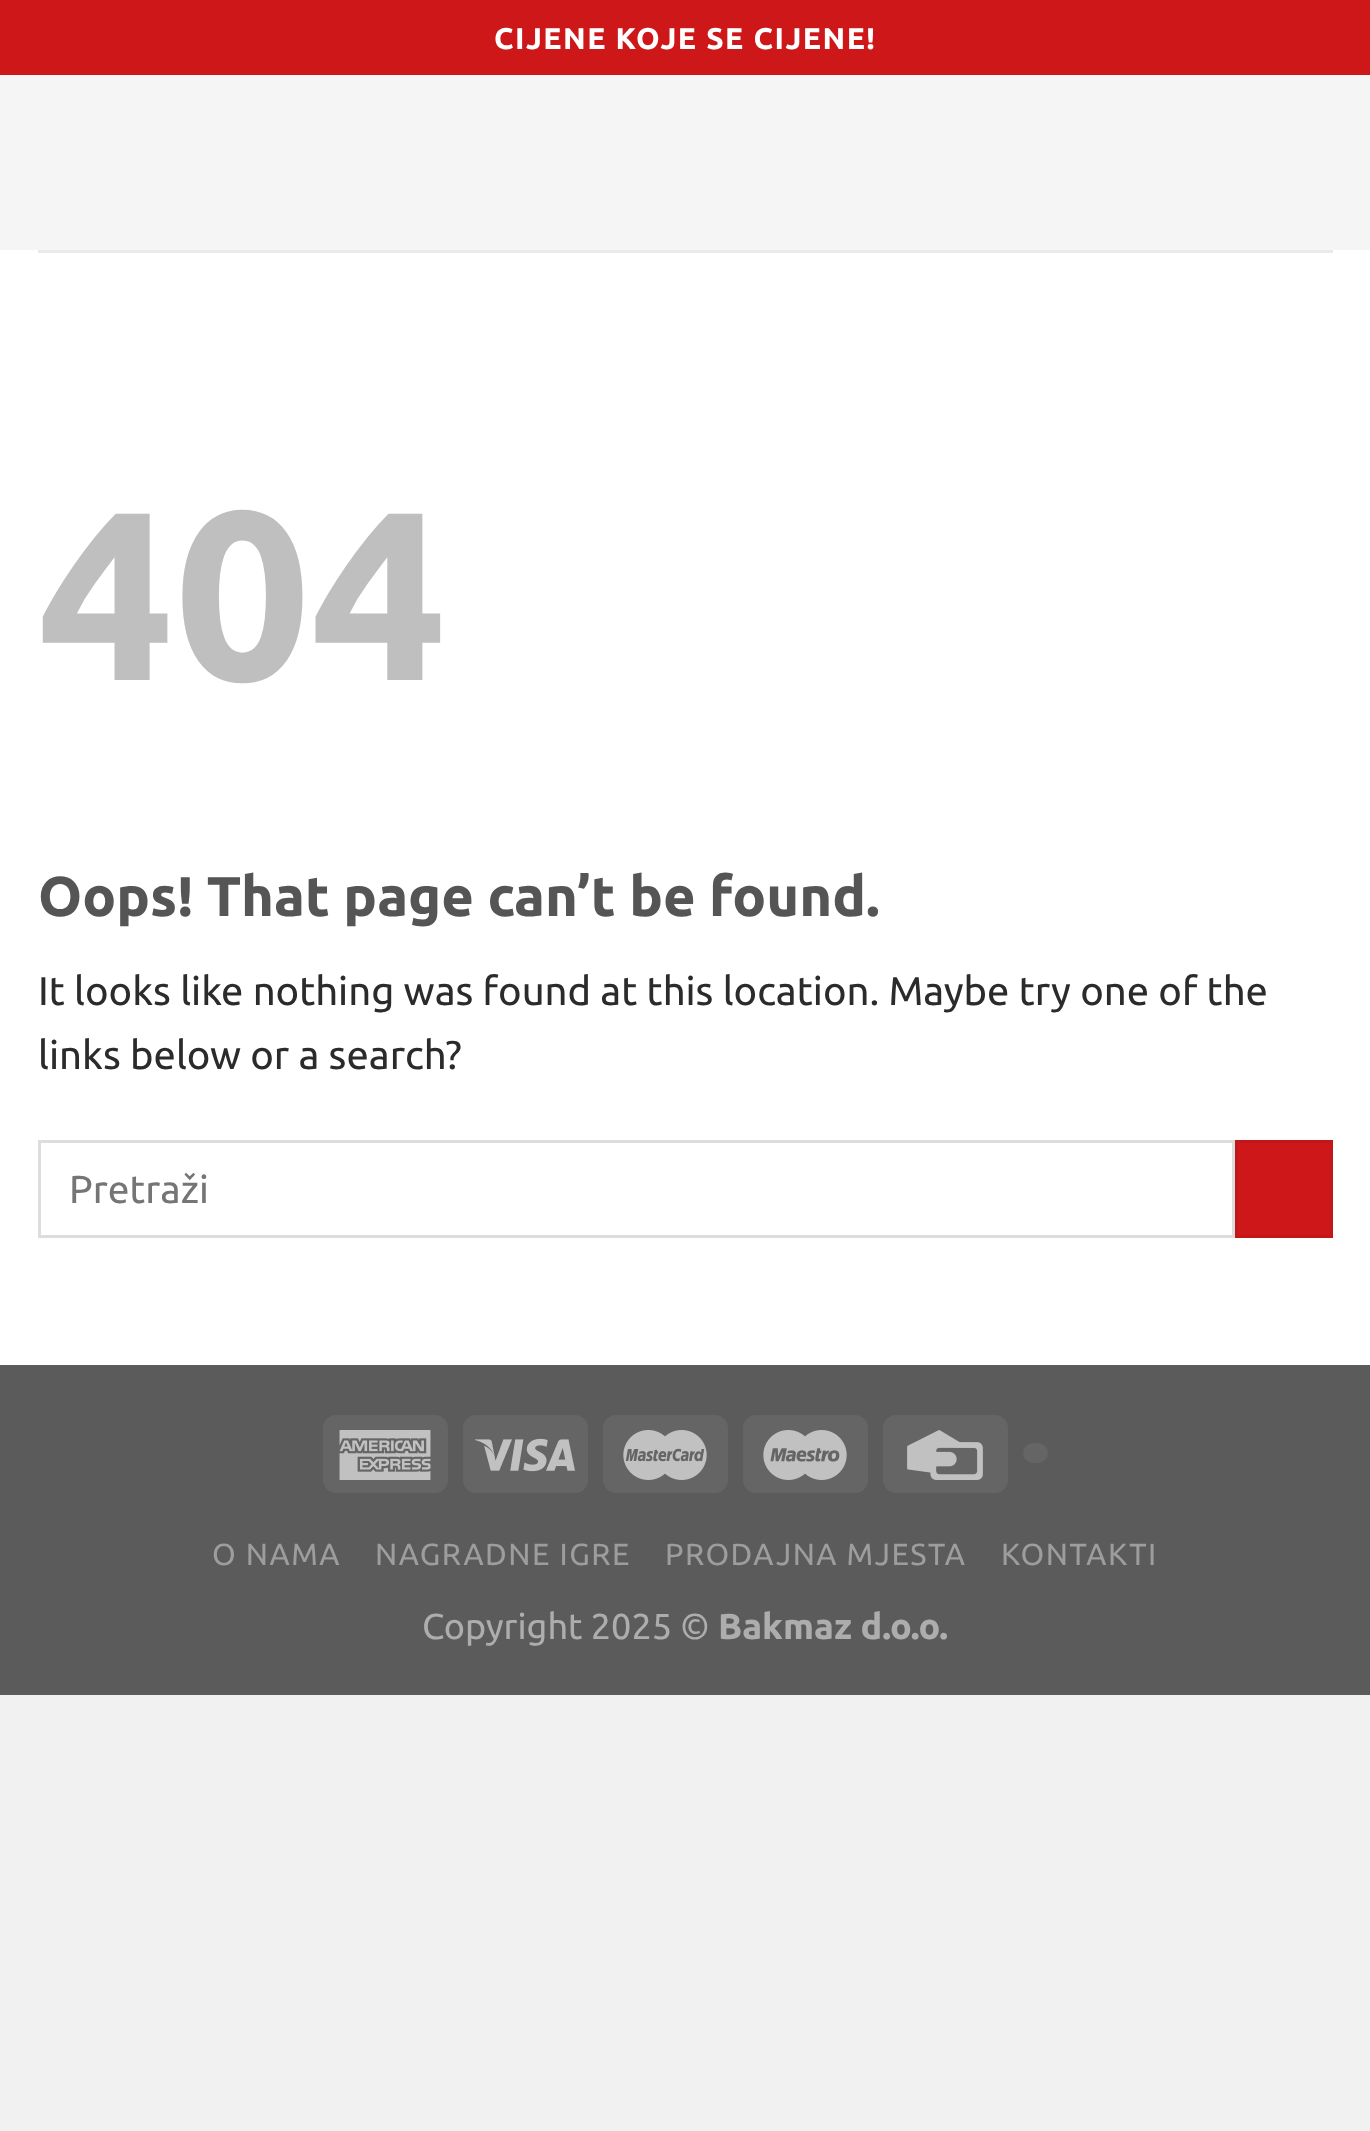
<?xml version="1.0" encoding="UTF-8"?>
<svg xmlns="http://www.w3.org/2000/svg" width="1370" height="2131">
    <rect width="100%" height="100%" fill="#F1F1F1"/>
    <rect x="0" y="250" width="1370" height="1115" fill="#FFFFFF"/>
    <rect x="0" y="75" width="1370" height="175" fill="#F5F5F5"/>
    <rect x="0" y="0" width="1370" height="75" fill="#CD1719"/>
    <text x="494" y="49" font-family="Ubuntu" font-size="30" font-weight="700" letter-spacing="1.5" fill="#FFFFFF">CIJENE KOJE SE CIJENE!</text>
    <rect x="38" y="250" width="1295" height="3" fill="#EAEAEA"/>
    <text x="38" y="680" font-family="Ubuntu" font-size="240" font-weight="700" fill="#BFBFBF">404</text>
    <text x="38" y="916" font-family="Ubuntu" font-size="56" font-weight="700" fill="#555555">Oops! That page can’t be found.</text>
    <text font-family="Ubuntu" font-size="40" fill="#2B2B2B">
        <tspan x="38" y="1005">It looks like nothing was found at this location. Maybe try one of the</tspan>
        <tspan x="38" y="1069">links below or a search?</tspan>
    </text>
    <rect x="39.5" y="1141.5" width="1194" height="95" fill="none" stroke="#DDDDDD" stroke-width="3"/>
    <text x="69" y="1203" font-family="Ubuntu" font-size="39" fill="#757575">Pretraži</text>
    <rect x="1236.5" y="1141.5" width="95" height="95" fill="#CD1719" stroke="#C31618" stroke-width="3"/>
    <rect x="0" y="1365" width="1370" height="330" fill="#5B5B5B"/>
    <rect x="323" y="1415" width="125" height="78" rx="13" fill="#656565"/>
    <image x="339" y="1430" width="92" height="50" href="img_01.png"/>
    <rect x="463" y="1415" width="125" height="78" rx="13" fill="#656565"/>
    <image x="475" y="1438" width="100" height="34" href="img_02.png"/>
    <rect x="603" y="1415" width="125" height="78" rx="13" fill="#656565"/>
    <image x="623" y="1430" width="84" height="50" href="img_03.png"/>
    <rect x="743" y="1415" width="125" height="78" rx="13" fill="#656565"/>
    <image x="763" y="1430" width="84" height="50" href="img_04.png"/>
    <rect x="883" y="1415" width="125" height="78" rx="13" fill="#656565"/>
    <image x="907" y="1430" width="76" height="50" href="img_05.png"/>
    <rect x="1023" y="1443" width="25" height="20" rx="10" fill="#656565"/>
    <text x="212" y="1565" font-family="Ubuntu" font-size="30.5" letter-spacing="1.5" fill="#9D9D9D">O NAMA</text>
    <text x="375" y="1565" font-family="Ubuntu" font-size="30.5" letter-spacing="1.5" fill="#9D9D9D">NAGRADNE IGRE</text>
    <text x="665" y="1565" font-family="Ubuntu" font-size="30.5" letter-spacing="1.5" fill="#9D9D9D">PRODAJNA MJESTA</text>
    <text x="1001" y="1565" font-family="Ubuntu" font-size="30.5" letter-spacing="1.5" fill="#9D9D9D">KONTAKTI</text>
    <text x="422" y="1639" font-family="Ubuntu" font-size="36" fill="#ADADAD">Copyright 2025 ©</text>
    <text x="718" y="1639" font-family="Ubuntu" font-size="36" font-weight="700" fill="#ADADAD">Bakmaz d.o.o.</text>
</svg>
